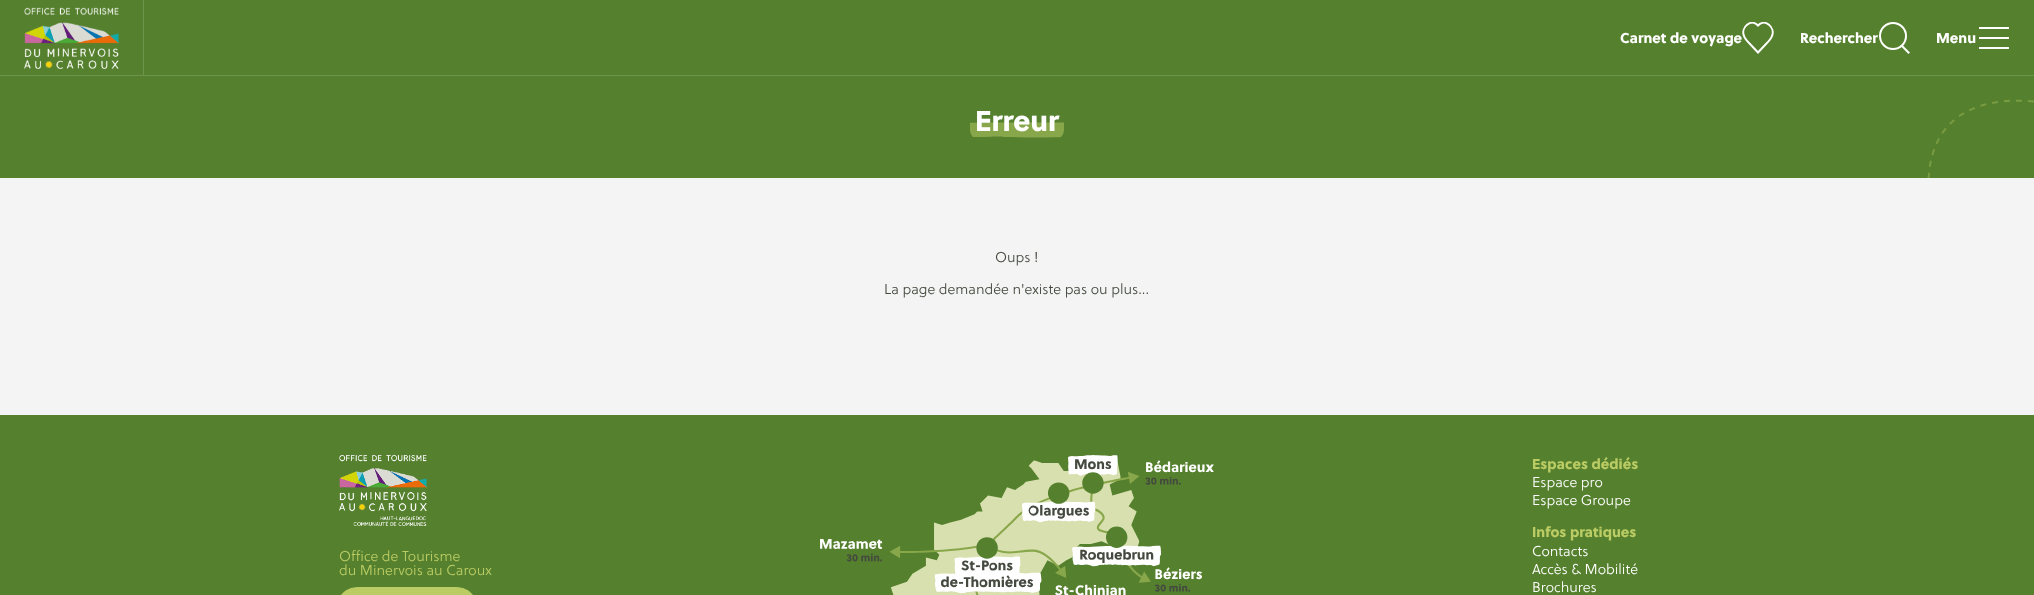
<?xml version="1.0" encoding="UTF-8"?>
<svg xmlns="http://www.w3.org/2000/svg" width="2034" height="595">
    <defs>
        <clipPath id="clip1"><rect x="1742" y="22" width="32" height="32"/></clipPath>
        <clipPath id="clip2"><rect x="1692" y="99" width="342" height="79"/></clipPath>
    </defs>
    <rect width="100%" height="100%" fill="#F4F4F4"/>
    <rect x="0" y="0" width="2034" height="75" fill="#55802E"/>
    <rect x="0" y="75" width="2034" height="1" fill="#6E934D"/>
    <image x="23" y="7" width="96" height="62" href="img_01.png"/>
    <rect x="143" y="0" width="1" height="76" fill="#6E934D"/>
    <g clip-path="url(#clip1)">
        <path d="M 1758 52.5 L 1750 44 C 1747.5 41.5 1745 39 1744 36 C 1740.5 27.5 1751 18 1758 25.5 C 1765 18 1775.5 27.5 1772 36 C 1771 39 1768.5 41.5 1766 44 Z" fill="none" stroke="#FFFFFF" stroke-width="2"/>
    </g>
    <text x="1620" y="43" font-family="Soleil" font-size="14.25" font-weight="800" fill="#FFFFFF">Carnet de voyage</text>
    <circle cx="1893" cy="36" r="13" fill="none" stroke="#FFFFFF" stroke-width="2"/>
    <path d="M 1902 46 L 1908.5 52.5" fill="none" stroke="#FFFFFF" stroke-width="2" stroke-linecap="square"/>
    <text x="1800" y="43" font-family="Soleil" font-size="14.25" font-weight="800" fill="#FFFFFF">Rechercher</text>
    <rect x="1979" y="37" width="30" height="2" fill="#FFFFFF"/>
    <rect x="1979" y="27" width="30" height="2" fill="#FFFFFF"/>
    <rect x="1979" y="47" width="30" height="2" fill="#FFFFFF"/>
    <text x="1936" y="43" font-family="Soleil" font-size="14.25" font-weight="800" fill="#FFFFFF">Menu</text>
    <rect x="0" y="76" width="2034" height="102" fill="#55802E"/>
    <g clip-path="url(#clip2)">
        <path d="M 2034 101.5 C 1964.5 95 1905 126.5 1937.5 246 C 1986 425 1859 465 1753 467 C 1647 468.5 1693 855 1805 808.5 C 1915.5 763.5 1869.5 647 2016.5 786 L 2025 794.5" fill="none" stroke="#799B41" stroke-width="2" stroke-dasharray="6 6"/>
    </g>
    <image x="970" y="122" width="94" height="16" href="img_02.png"/>
    <text x="975" y="131" font-family="Soleil" font-size="28.5" font-weight="800" fill="#FFFFFF">Erreur</text>
    <text x="995" y="262" font-family="Soleil" font-size="14.25" font-weight="300" fill="#444A3F">Oups !</text>
    <text x="884" y="294" font-family="Soleil" font-size="14.25" font-weight="300" fill="#444A3F">La page demandée n'existe pas ou plus...</text>
    <rect x="0" y="415" width="2034" height="180" fill="#55802E"/>
    <image x="339" y="455" width="88" height="71" href="img_03.png"/>
    <text font-family="Soleil" font-size="14.25" font-weight="300" fill="#BBCC65">
        <tspan x="339" y="561">Office de Tourisme</tspan>
        <tspan x="339" y="575">du Minervois au Caroux</tspan>
    </text>
    <rect x="339.5" y="587.5" width="135" height="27" rx="18.5" fill="#BBCC65" stroke="#BBCC65"/>
    <image x="820" y="455" width="394" height="140" href="img_04.png"/>
    <text x="1532" y="469" font-family="Soleil" font-size="14.25" font-weight="800" fill="#BBCC65">Espaces dédiés</text>
    <text font-family="Soleil" font-size="14.25" font-weight="300" fill="#FFFFFF">
        <tspan x="1532" y="487">Espace pro</tspan>
        <tspan x="1532" y="505">Espace Groupe</tspan>
    </text>
    <text x="1532" y="537" font-family="Soleil" font-size="14.25" font-weight="800" fill="#BBCC65">Infos pratiques</text>
    <text font-family="Soleil" font-size="14.25" font-weight="300" fill="#FFFFFF">
        <tspan x="1532" y="556">Contacts</tspan>
        <tspan x="1532" y="574">Accès &amp; Mobilité</tspan>
        <tspan x="1532" y="592">Brochures</tspan>
    </text>
</svg>
